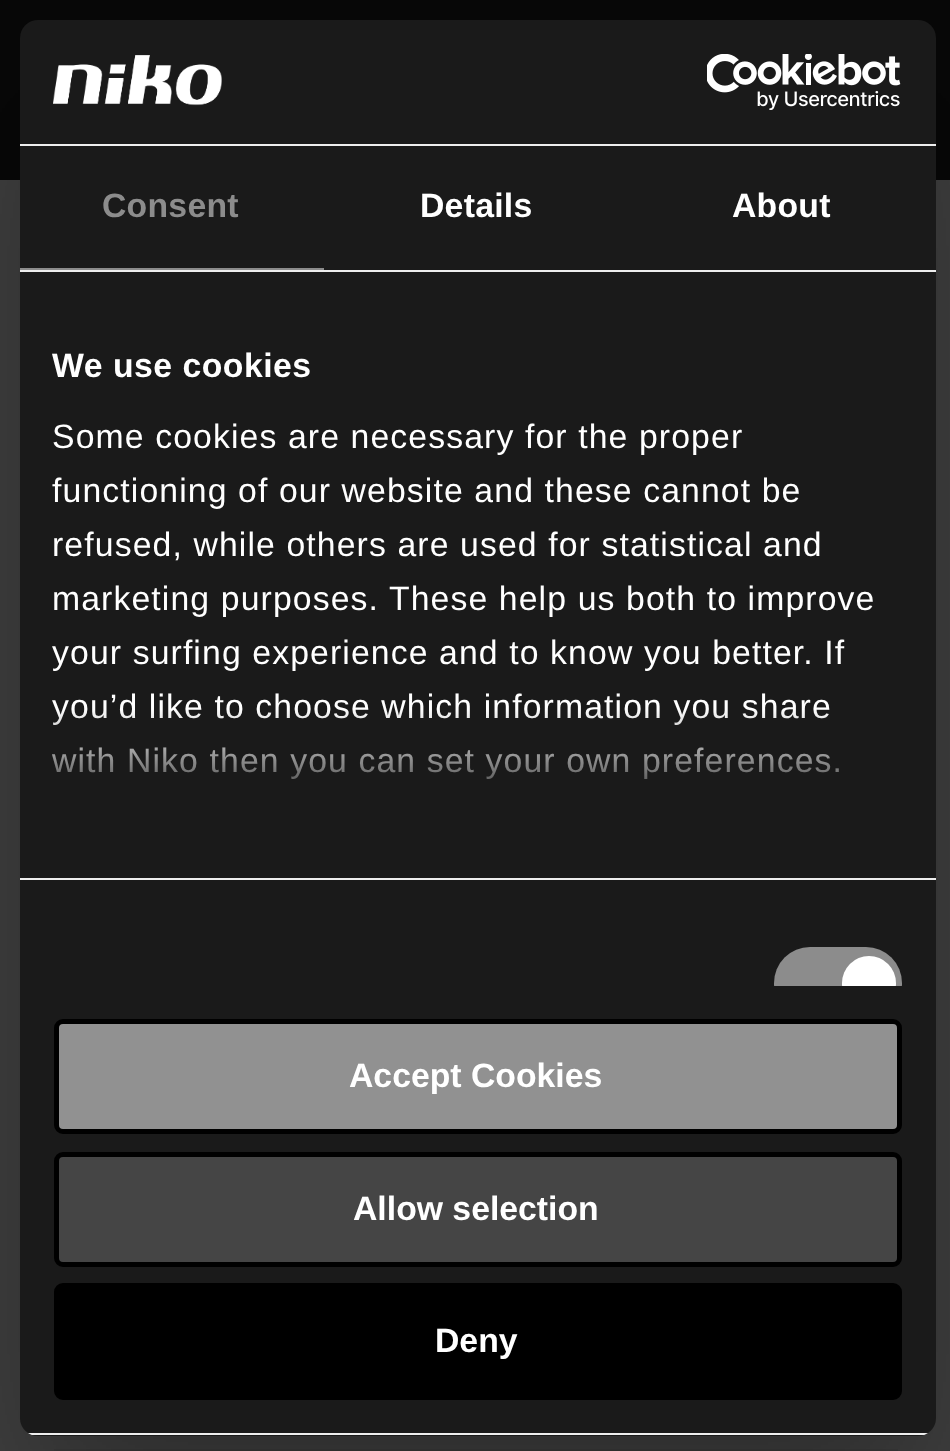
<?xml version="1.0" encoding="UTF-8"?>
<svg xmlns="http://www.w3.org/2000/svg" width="950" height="1451">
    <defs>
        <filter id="blur1" x="-50%" y="-200%" width="200%" height="500%"><feGaussianBlur stdDeviation="76.5"/></filter>
        <linearGradient id="g1" gradientUnits="userSpaceOnUse" x1="462" y1="876" x2="462" y2="708"><stop offset="0" stop-color="#1A1A1A"/><stop offset="0.5" stop-color="#1A1A1A" stop-opacity="0.8"/><stop offset="1" stop-color="#1A1A1A" stop-opacity="0"/></linearGradient>
        <clipPath id="clip1"><rect x="20" y="272" width="916" height="714"/></clipPath>
        <clipPath id="clip2"><rect x="20" y="20" width="916" height="1416" rx="18"/></clipPath>
    </defs>
    <rect width="100%" height="100%" fill="#404040"/>
    <rect x="0" y="0" width="950" height="180" fill="#070707"/>
    <rect x="55" y="1450" width="842" height="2" fill="none" stroke="#3C3C3C" stroke-width="2"/>
    <rect x="20" y="92" width="916" height="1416" rx="18" fill="#000000" fill-opacity="0.3" filter="url(#blur1)"/>
    <rect x="20" y="20" width="916" height="1416" rx="18" fill="#1A1A1A"/>
    <rect x="20" y="144" width="916" height="2" fill="#EEEEEE"/>
    <image x="53" y="55" width="169" height="51" href="img_01.png"/>
    <image x="707" y="54" width="194" height="56" href="img_02.png"/>
    <rect x="20" y="270" width="916" height="2" fill="#EEEEEE"/>
    <rect x="20" y="268" width="304" height="2" fill="#8C8C8C"/>
    <text x="102" y="217" font-family="Liberation Sans" font-size="33.75" font-weight="700" letter-spacing="0.25" fill="#8C8C8C">Consent</text>
    <text x="420" y="217" font-family="Liberation Sans" font-size="33.75" font-weight="700" letter-spacing="0.25" fill="#FFFFFF">Details</text>
    <text x="732" y="217" font-family="Liberation Sans" font-size="33.75" font-weight="700" letter-spacing="0.25" fill="#FFFFFF">About</text>
    <rect x="20" y="878" width="916" height="2" fill="#EEEEEE"/>
    <text x="52" y="377" font-family="Liberation Sans" font-size="33.75" font-weight="700" letter-spacing="0.5" fill="#FFFFFF">We use cookies</text>
    <text font-family="Liberation Sans" font-size="33.75" letter-spacing="1.12" fill="#FFFFFF">
        <tspan x="52" y="448">Some cookies are necessary for the proper</tspan>
        <tspan x="52" y="502">functioning of our website and these cannot be</tspan>
        <tspan x="52" y="556">refused, while others are used for statistical and</tspan>
        <tspan x="52" y="610">marketing purposes. These help us both to improve</tspan>
        <tspan x="52" y="664">your surfing experience and to know you better. If</tspan>
        <tspan x="52" y="718">you’d like to choose which information you share</tspan>
        <tspan x="52" y="772">with Niko then you can set your own preferences.</tspan>
    </text>
    <rect x="51" y="710" width="788" height="69" fill="url(#g1)"/>
    <g clip-path="url(#clip1)">
        <rect x="774" y="947" width="128" height="72" rx="36" fill="#8C8C8C"/>
        <circle cx="869" cy="983" r="27" fill="#FFFFFF"/>
    </g>
    <g clip-path="url(#clip2)">
        <rect x="20" y="1433" width="916" height="2" fill="#EEEEEE"/>
    </g>
    <rect x="56.5" y="1021.5" width="843" height="110" rx="6.5" fill="#919191" stroke="#000000" stroke-width="5"/>
    <text x="349" y="1087" font-family="Liberation Sans" font-size="33.75" font-weight="700" fill="#FFFFFF">Accept Cookies</text>
    <rect x="56.5" y="1154.5" width="843" height="110" rx="6.5" fill="#454545" stroke="#000000" stroke-width="5"/>
    <text x="353" y="1220" font-family="Liberation Sans" font-size="33.75" font-weight="700" fill="#FFFFFF">Allow selection</text>
    <rect x="56.5" y="1285.5" width="843" height="112" rx="6.5" fill="#000000" stroke="#000000" stroke-width="5"/>
    <text x="435" y="1352" font-family="Liberation Sans" font-size="33.75" font-weight="700" fill="#FFFFFF">Deny</text>
</svg>
